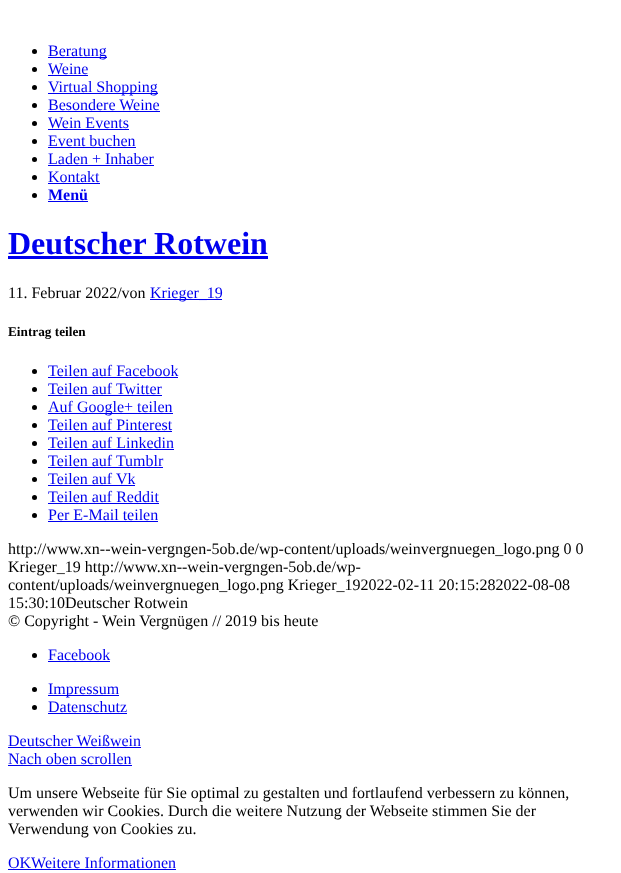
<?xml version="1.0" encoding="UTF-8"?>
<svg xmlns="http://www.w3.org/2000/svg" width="621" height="873">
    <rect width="100%" height="100%" fill="#FFFFFF"/>
    <circle cx="34.5" cy="51.5" r="2.5" fill="#000000"/>
    <rect x="48" y="57" width="59" height="1" fill="#0000EE"/>
    <text x="48" y="56" font-family="Liberation Serif" font-size="16" fill="#0000EE">Beratung</text>
    <circle cx="34.5" cy="69.5" r="2.5" fill="#000000"/>
    <text x="48" y="74" font-family="Liberation Serif" font-size="16" fill="#0000EE">Weine</text>
    <rect x="48" y="75" width="40" height="1" fill="#0000EE"/>
    <circle cx="34.5" cy="87.5" r="2.5" fill="#000000"/>
    <rect x="48" y="93" width="110" height="1" fill="#0000EE"/>
    <text x="48" y="92" font-family="Liberation Serif" font-size="16" fill="#0000EE">Virtual Shopping</text>
    <circle cx="34.5" cy="105.5" r="2.5" fill="#000000"/>
    <text x="48" y="110" font-family="Liberation Serif" font-size="16" fill="#0000EE">Besondere Weine</text>
    <rect x="48" y="111" width="112" height="1" fill="#0000EE"/>
    <circle cx="34.5" cy="123.5" r="2.5" fill="#000000"/>
    <text x="48" y="128" font-family="Liberation Serif" font-size="16" fill="#0000EE">Wein Events</text>
    <rect x="48" y="129" width="81" height="1" fill="#0000EE"/>
    <circle cx="34.5" cy="141.5" r="2.5" fill="#000000"/>
    <text x="48" y="146" font-family="Liberation Serif" font-size="16" fill="#0000EE">Event buchen</text>
    <rect x="48" y="147" width="88" height="1" fill="#0000EE"/>
    <circle cx="34.5" cy="159.5" r="2.5" fill="#000000"/>
    <text x="48" y="164" font-family="Liberation Serif" font-size="16" fill="#0000EE">Laden + Inhaber</text>
    <rect x="48" y="165" width="106" height="1" fill="#0000EE"/>
    <circle cx="34.5" cy="177.5" r="2.5" fill="#000000"/>
    <text x="48" y="182" font-family="Liberation Serif" font-size="16" fill="#0000EE">Kontakt</text>
    <rect x="48" y="183" width="52" height="1" fill="#0000EE"/>
    <circle cx="34.5" cy="195.5" r="2.5" fill="#000000"/>
    <text x="48" y="200" font-family="Liberation Serif" font-size="16" font-weight="700" fill="#0000EE">Menü</text>
    <rect x="48" y="201" width="40" height="1" fill="#0000EE"/>
    <text x="8" y="254" font-family="Liberation Serif" font-size="32" font-weight="700" fill="#0000EE">Deutscher Rotwein</text>
    <rect x="8" y="256" width="260" height="3" fill="#0000EE"/>
    <text x="8" y="298" font-family="Liberation Serif" font-size="16" fill="#000000">11. Februar 2022/von</text>
    <rect x="150" y="299" width="72" height="1" fill="#0000EE"/>
    <text x="150" y="298" font-family="Liberation Serif" font-size="16" fill="#0000EE">Krieger_19</text>
    <text x="8" y="336" font-family="Liberation Serif" font-size="13.25" font-weight="700" fill="#000000">Eintrag teilen</text>
    <circle cx="34.5" cy="371.5" r="2.5" fill="#000000"/>
    <text x="48" y="376" font-family="Liberation Serif" font-size="16" fill="#0000EE">Teilen auf Facebook</text>
    <rect x="48" y="377" width="130" height="1" fill="#0000EE"/>
    <circle cx="34.5" cy="389.5" r="2.5" fill="#000000"/>
    <text x="48" y="394" font-family="Liberation Serif" font-size="16" fill="#0000EE">Teilen auf Twitter</text>
    <rect x="48" y="395" width="114" height="1" fill="#0000EE"/>
    <circle cx="34.5" cy="407.5" r="2.5" fill="#000000"/>
    <rect x="48" y="413" width="125" height="1" fill="#0000EE"/>
    <text x="48" y="412" font-family="Liberation Serif" font-size="16" fill="#0000EE">Auf Google+ teilen</text>
    <circle cx="34.5" cy="425.5" r="2.5" fill="#000000"/>
    <text x="48" y="430" font-family="Liberation Serif" font-size="16" fill="#0000EE">Teilen auf Pinterest</text>
    <rect x="48" y="431" width="124" height="1" fill="#0000EE"/>
    <circle cx="34.5" cy="443.5" r="2.5" fill="#000000"/>
    <text x="48" y="448" font-family="Liberation Serif" font-size="16" fill="#0000EE">Teilen auf Linkedin</text>
    <rect x="48" y="449" width="126" height="1" fill="#0000EE"/>
    <circle cx="34.5" cy="461.5" r="2.5" fill="#000000"/>
    <text x="48" y="466" font-family="Liberation Serif" font-size="16" fill="#0000EE">Teilen auf Tumblr</text>
    <rect x="48" y="467" width="115" height="1" fill="#0000EE"/>
    <circle cx="34.5" cy="479.5" r="2.5" fill="#000000"/>
    <text x="48" y="484" font-family="Liberation Serif" font-size="16" fill="#0000EE">Teilen auf Vk</text>
    <rect x="48" y="485" width="87" height="1" fill="#0000EE"/>
    <circle cx="34.5" cy="497.5" r="2.5" fill="#000000"/>
    <text x="48" y="502" font-family="Liberation Serif" font-size="16" fill="#0000EE">Teilen auf Reddit</text>
    <rect x="48" y="503" width="111" height="1" fill="#0000EE"/>
    <circle cx="34.5" cy="515.5" r="2.5" fill="#000000"/>
    <text x="48" y="520" font-family="Liberation Serif" font-size="16" fill="#0000EE">Per E-Mail teilen</text>
    <rect x="48" y="521" width="110" height="1" fill="#0000EE"/>
    <text font-family="Liberation Serif" font-size="16" fill="#000000">
        <tspan x="8" y="554">http://www.xn--wein-vergngen-5ob.de/wp-content/uploads/weinvergnuegen_logo.png 0 0</tspan>
        <tspan x="8" y="572">Krieger_19 http://www.xn--wein-vergngen-5ob.de/wp-</tspan>
        <tspan x="8" y="590">content/uploads/weinvergnuegen_logo.png Krieger_192022-02-11 20:15:282022-08-08</tspan>
        <tspan x="8" y="608">15:30:10Deutscher Rotwein</tspan>
        <tspan x="8" y="626">© Copyright - Wein Vergnügen // 2019 bis heute</tspan>
    </text>
    <circle cx="34.5" cy="655.5" r="2.5" fill="#000000"/>
    <text x="48" y="660" font-family="Liberation Serif" font-size="16" fill="#0000EE">Facebook</text>
    <rect x="48" y="661" width="62" height="1" fill="#0000EE"/>
    <circle cx="34.5" cy="689.5" r="2.5" fill="#000000"/>
    <rect x="48" y="695" width="71" height="1" fill="#0000EE"/>
    <text x="48" y="694" font-family="Liberation Serif" font-size="16" fill="#0000EE">Impressum</text>
    <circle cx="34.5" cy="707.5" r="2.5" fill="#000000"/>
    <text x="48" y="712" font-family="Liberation Serif" font-size="16" fill="#0000EE">Datenschutz</text>
    <rect x="48" y="713" width="79" height="1" fill="#0000EE"/>
    <text x="8" y="746" font-family="Liberation Serif" font-size="16" fill="#0000EE">Deutscher Weißwein</text>
    <rect x="8" y="747" width="133" height="1" fill="#0000EE"/>
    <text x="8" y="764" font-family="Liberation Serif" font-size="16" fill="#0000EE">Nach oben scrollen</text>
    <rect x="8" y="765" width="124" height="1" fill="#0000EE"/>
    <text font-family="Liberation Serif" font-size="16" fill="#000000">
        <tspan x="8" y="798">Um unsere Webseite für Sie optimal zu gestalten und fortlaufend verbessern zu können,</tspan>
        <tspan x="8" y="816">verwenden wir Cookies. Durch die weitere Nutzung der Webseite stimmen Sie der</tspan>
        <tspan x="8" y="834">Verwendung von Cookies zu.</tspan>
    </text>
    <text x="8" y="868" font-family="Liberation Serif" font-size="16" fill="#0000EE">OKWeitere Informationen</text>
    <rect x="8" y="869" width="168" height="1" fill="#0000EE"/>
</svg>
